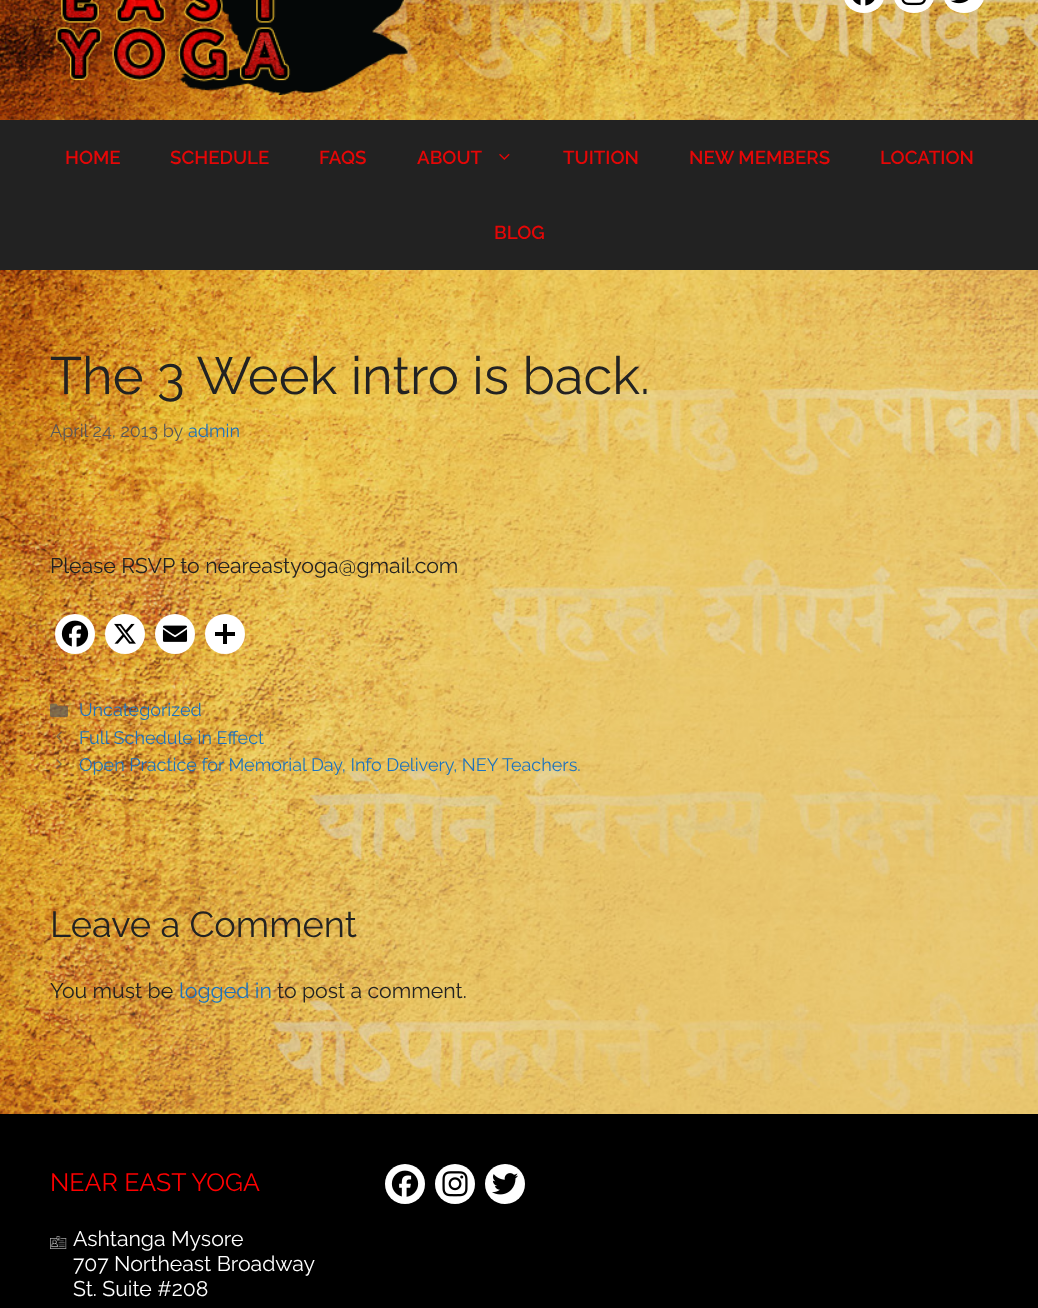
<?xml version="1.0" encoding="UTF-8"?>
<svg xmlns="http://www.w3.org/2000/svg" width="1038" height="1308">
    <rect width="100%" height="100%" fill="#FFFFFF"/>
    <image x="0" y="0" width="1038" height="1114" href="img_01.png"/>
    <rect x="844" y="-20" width="40" height="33" rx="20" fill="#FFFFFF"/>
    <image x="853" y="0" width="22" height="6" href="img_02.png"/>
    <rect x="894" y="-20" width="40" height="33" rx="20" fill="#FFFFFF"/>
    <image x="901" y="0" width="25" height="6" href="img_03.png"/>
    <rect x="944" y="-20" width="40" height="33" rx="20" fill="#FFFFFF"/>
    <image x="950" y="0" width="19" height="4" href="img_04.png"/>
    <image x="56" y="0" width="352" height="95" href="img_05.png"/>
    <rect x="0" y="120" width="1038" height="150" fill="#222222"/>
    <text x="65" y="164" font-family="Raleway" font-size="18.75" font-weight="600" fill="#E40707">HOME</text>
    <text x="170" y="164" font-family="Raleway" font-size="18.75" font-weight="600" fill="#E40707">SCHEDULE</text>
    <text x="319" y="164" font-family="Raleway" font-size="18.75" font-weight="600" fill="#E40707">FAQS</text>
    <text x="417" y="164" font-family="Raleway" font-size="18.75" font-weight="600" fill="#E40707">ABOUT</text>
    <image x="499" y="153" width="11" height="7" href="img_06.png"/>
    <text x="563" y="164" font-family="Raleway" font-size="18.75" font-weight="600" fill="#E40707">TUITION</text>
    <text x="689" y="164" font-family="Raleway" font-size="18.75" font-weight="600" fill="#E40707">NEW MEMBERS</text>
    <text x="880" y="164" font-family="Raleway" font-size="18.75" font-weight="600" fill="#E40707">LOCATION</text>
    <text x="494" y="239" font-family="Raleway" font-size="18.75" font-weight="600" fill="#E40707">BLOG</text>
    <text x="50" y="394" font-family="Raleway" font-size="52.5" fill="#222222">The 3 Week intro is back.</text>
    <text x="50" y="437" font-family="Raleway" font-size="18.05" fill="#595959">April 24, 2013 by</text>
    <text x="188" y="437" font-family="Raleway" font-size="18.05" fill="#1E73BE">admin</text>
    <text x="50" y="573" font-family="Raleway" font-size="21.25" fill="#222222">Please RSVP to neareastyoga@gmail.com</text>
    <circle cx="75" cy="634" r="20" fill="#FFFFFF"/>
    <image x="61" y="620" width="28" height="27" href="img_07.png"/>
    <circle cx="125" cy="634" r="20" fill="#FFFFFF"/>
    <image x="114" y="623" width="22" height="21" href="img_08.png"/>
    <circle cx="175" cy="634" r="20" fill="#FFFFFF"/>
    <image x="162" y="625" width="26" height="17" href="img_09.png"/>
    <circle cx="225" cy="634" r="20" fill="#FFFFFF"/>
    <rect x="223" y="624" width="4" height="20" fill="#000000"/>
    <rect x="215" y="632" width="20" height="4" fill="#000000"/>
    <image x="50" y="703" width="18" height="15" href="img_10.png"/>
    <text x="79" y="716" font-family="Raleway" font-size="18.05" fill="#1E73BE">Uncategorized</text>
    <image x="56" y="731" width="6" height="11" href="img_11.png"/>
    <text x="79" y="744" font-family="Raleway" font-size="18.05" fill="#1E73BE">Full Schedule in Effect</text>
    <image x="56" y="759" width="6" height="10" href="img_12.png"/>
    <text x="79" y="771" font-family="Raleway" font-size="18.05" fill="#1E73BE">Open Practice for Memorial Day, Info Delivery, NEY Teachers.</text>
    <text x="50" y="937" font-family="Raleway" font-size="36.25" fill="#222222">Leave a Comment</text>
    <text x="50" y="998" font-family="Raleway" font-size="21.25" fill="#222222">You must be</text>
    <text x="179" y="998" font-family="Raleway" font-size="21.25" fill="#1E73BE">logged in</text>
    <text x="277" y="998" font-family="Raleway" font-size="21.25" fill="#222222">to post a comment.</text>
    <rect x="0" y="1114" width="1038" height="194" fill="#000000"/>
    <text x="50" y="1191" font-family="Raleway" font-size="25" fill="#FF0000">NEAR EAST YOGA</text>
    <image x="50" y="1236" width="17" height="13" href="img_13.png"/>
    <text font-family="Raleway" font-size="21.25" fill="#FFFFFF">
        <tspan x="73" y="1246">Ashtanga Mysore</tspan>
        <tspan x="73" y="1271">707 Northeast Broadway</tspan>
        <tspan x="73" y="1296">St. Suite #208</tspan>
    </text>
    <circle cx="405" cy="1184" r="20" fill="#FFFFFF"/>
    <image x="391" y="1170" width="28" height="27" href="img_07.png"/>
    <circle cx="455" cy="1184" r="20" fill="#FFFFFF"/>
    <image x="442" y="1171" width="26" height="26" href="img_14.png"/>
    <circle cx="505" cy="1184" r="20" fill="#FFFFFF"/>
    <image x="492" y="1173" width="26" height="22" href="img_15.png"/>
</svg>
